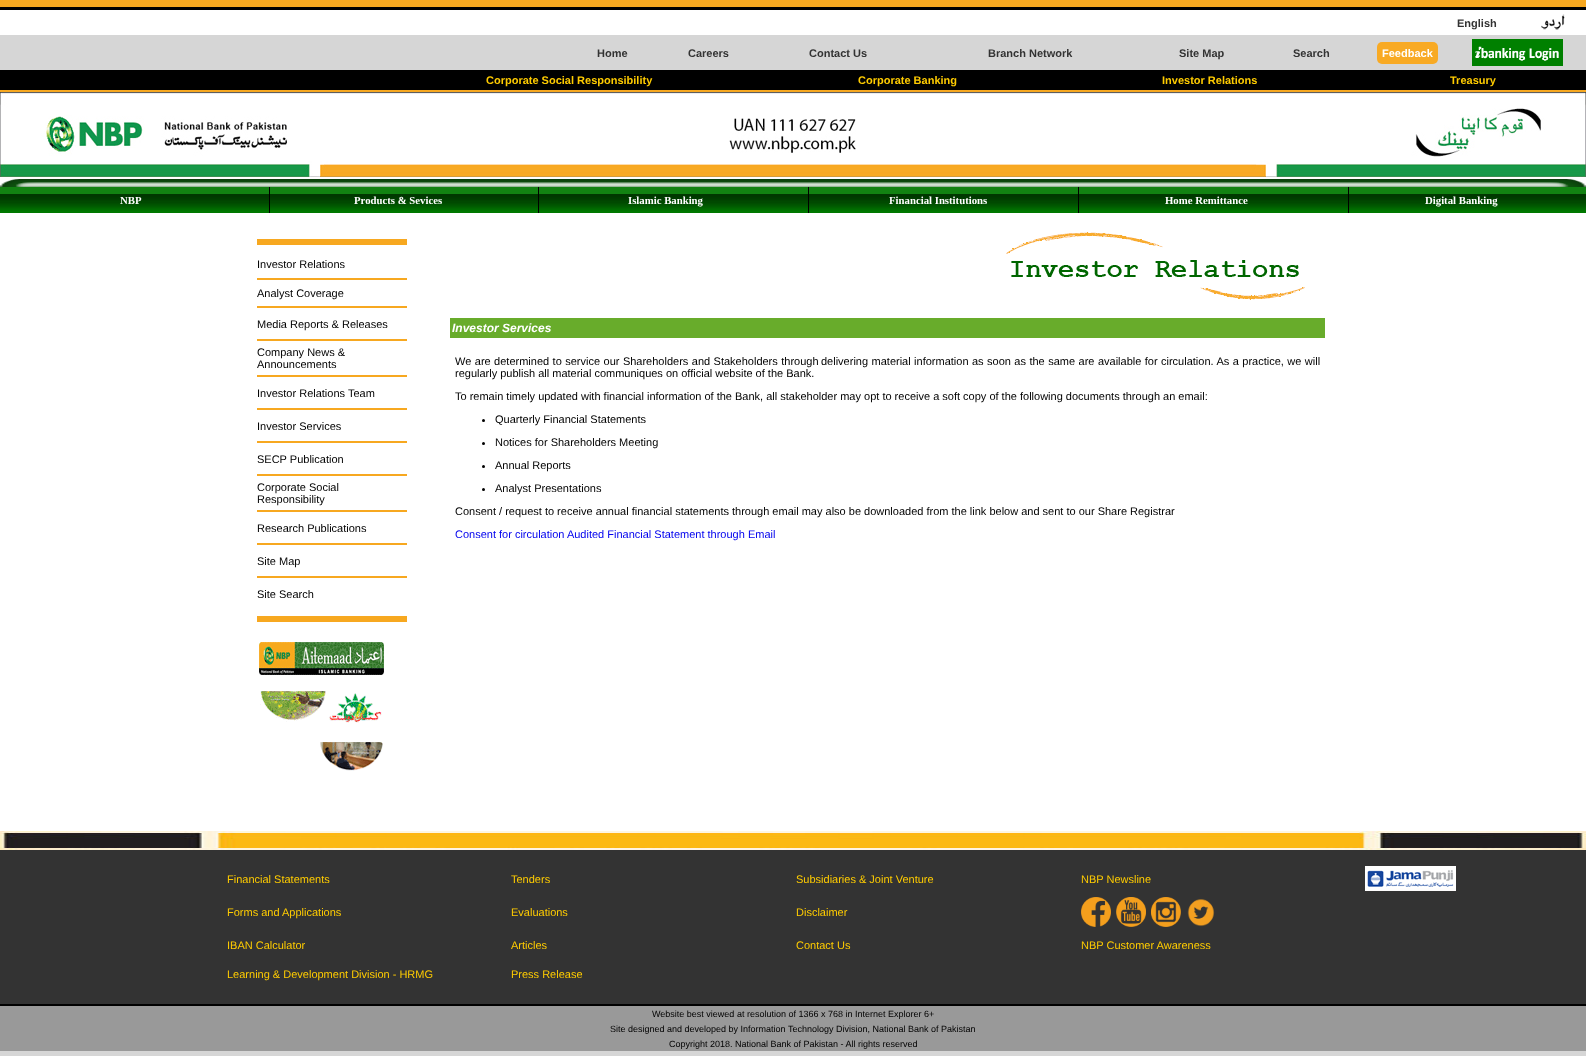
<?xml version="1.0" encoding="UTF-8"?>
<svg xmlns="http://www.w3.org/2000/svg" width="1586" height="1056">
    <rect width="100%" height="100%" fill="#FFFFFF"/>
    <rect x="0" y="0" width="1586" height="7" fill="#F7A820"/>
    <rect x="0" y="7" width="1586" height="3" fill="#000000"/>
    <text x="1457" y="27" font-family="Liberation Sans" font-size="11" font-weight="700" fill="#333333">English</text>
    <image x="1541" y="14" width="24" height="16" href="img_01.png"/>
    <rect x="0" y="35" width="1586" height="35" fill="#D6D6D6"/>
    <text x="597" y="57" font-family="Liberation Sans" font-size="11" font-weight="700" fill="#333333">Home</text>
    <text x="688" y="57" font-family="Liberation Sans" font-size="11" font-weight="700" fill="#333333">Careers</text>
    <text x="809" y="57" font-family="Liberation Sans" font-size="11" font-weight="700" fill="#333333">Contact Us</text>
    <text x="988" y="57" font-family="Liberation Sans" font-size="11" font-weight="700" fill="#333333">Branch Network</text>
    <text x="1179" y="57" font-family="Liberation Sans" font-size="11" font-weight="700" fill="#333333">Site Map</text>
    <text x="1293" y="57" font-family="Liberation Sans" font-size="11" font-weight="700" fill="#333333">Search</text>
    <rect x="1377" y="42" width="61" height="22" rx="5" fill="#F8AA24"/>
    <text x="1382" y="57" font-family="Liberation Sans" font-size="11" font-weight="700" fill="#FFFFFF">Feedback</text>
    <image x="1472" y="39" width="91" height="27" href="img_02.png"/>
    <rect x="0" y="70" width="1586" height="20" fill="#000000"/>
    <text x="486" y="84" font-family="Liberation Sans" font-size="11" font-weight="700" fill="#FFCC00">Corporate Social Responsibility</text>
    <text x="858" y="84" font-family="Liberation Sans" font-size="11" font-weight="700" fill="#FFCC00">Corporate Banking</text>
    <text x="1162" y="84" font-family="Liberation Sans" font-size="11" font-weight="700" fill="#FFCC00">Investor Relations</text>
    <text x="1450" y="84" font-family="Liberation Sans" font-size="11" font-weight="700" fill="#FFCC00">Treasury</text>
    <rect x="0" y="90" width="1586" height="2" fill="#F7A820"/>
    <image x="0" y="92" width="338" height="85" href="img_03.png"/>
    <image x="338" y="92" width="905" height="85" href="img_04.png"/>
    <image x="729" y="118" width="127" height="35" href="img_05.png"/>
    <image x="1243" y="92" width="343" height="85" href="img_06.png"/>
    <image x="0" y="179" width="1586" height="8" href="img_07.png"/>
    <image x="0" y="187" width="1586" height="26" href="img_08.png"/>
    <text x="120" y="204" font-family="Liberation Serif" font-size="10.75" font-weight="700" fill="#FFFFFF">NBP</text>
    <rect x="269" y="187" width="1" height="26" fill="#000000"/>
    <text x="354" y="204" font-family="Liberation Serif" font-size="10.75" font-weight="700" fill="#FFFFFF">Products &amp; Sevices</text>
    <rect x="538" y="187" width="1" height="26" fill="#000000"/>
    <text x="628" y="204" font-family="Liberation Serif" font-size="10.75" font-weight="700" fill="#FFFFFF">Islamic Banking</text>
    <rect x="808" y="187" width="1" height="26" fill="#000000"/>
    <text x="889" y="204" font-family="Liberation Serif" font-size="10.75" font-weight="700" fill="#FFFFFF">Financial Institutions</text>
    <rect x="1078" y="187" width="1" height="26" fill="#000000"/>
    <text x="1165" y="204" font-family="Liberation Serif" font-size="10.75" font-weight="700" fill="#FFFFFF">Home Remittance</text>
    <rect x="1348" y="187" width="1" height="26" fill="#000000"/>
    <text x="1425" y="204" font-family="Liberation Serif" font-size="10.75" font-weight="700" fill="#FFFFFF">Digital Banking</text>
    <rect x="257" y="239" width="150" height="6" fill="#F7A820"/>
    <text x="257" y="268" font-family="Liberation Sans" font-size="11" fill="#000000">Investor Relations</text>
    <rect x="257" y="278" width="150" height="2" fill="#F7A820"/>
    <text x="257" y="297" font-family="Liberation Sans" font-size="11" fill="#000000">Analyst Coverage</text>
    <rect x="257" y="306" width="150" height="2" fill="#F7A820"/>
    <text x="257" y="328" font-family="Liberation Sans" font-size="11" fill="#000000">Media Reports &amp; Releases</text>
    <rect x="257" y="339" width="150" height="2" fill="#F7A820"/>
    <text font-family="Liberation Sans" font-size="11" fill="#000000">
        <tspan x="257" y="356">Company News &amp;</tspan>
        <tspan x="257" y="368">Announcements</tspan>
    </text>
    <rect x="257" y="375" width="150" height="2" fill="#F7A820"/>
    <text x="257" y="397" font-family="Liberation Sans" font-size="11" fill="#000000">Investor Relations Team</text>
    <rect x="257" y="408" width="150" height="2" fill="#F7A820"/>
    <text x="257" y="430" font-family="Liberation Sans" font-size="11" fill="#000000">Investor Services</text>
    <rect x="257" y="441" width="150" height="2" fill="#F7A820"/>
    <text x="257" y="463" font-family="Liberation Sans" font-size="11" fill="#000000">SECP Publication</text>
    <rect x="257" y="474" width="150" height="2" fill="#F7A820"/>
    <text font-family="Liberation Sans" font-size="11" fill="#000000">
        <tspan x="257" y="491">Corporate Social</tspan>
        <tspan x="257" y="503">Responsibility</tspan>
    </text>
    <rect x="257" y="510" width="150" height="2" fill="#F7A820"/>
    <text x="257" y="532" font-family="Liberation Sans" font-size="11" fill="#000000">Research Publications</text>
    <rect x="257" y="543" width="150" height="2" fill="#F7A820"/>
    <text x="257" y="565" font-family="Liberation Sans" font-size="11" fill="#000000">Site Map</text>
    <rect x="257" y="576" width="150" height="2" fill="#F7A820"/>
    <text x="257" y="598" font-family="Liberation Sans" font-size="11" fill="#000000">Site Search</text>
    <rect x="257" y="616" width="150" height="6" fill="#F7A820"/>
    <image x="259" y="642" width="125" height="33" href="img_09.png"/>
    <image x="260" y="691" width="122" height="32" href="img_10.png"/>
    <image x="320" y="742" width="63" height="29" href="img_11.png"/>
    <image x="1006" y="232" width="299" height="68" href="img_12.png"/>
    <rect x="450" y="318" width="875" height="20" fill="#68AC2B"/>
    <text x="452" y="332" font-family="Liberation Sans" font-size="12" font-weight="700" font-style="italic" fill="#FFFFFF">Investor Services</text>
    <text x="455" y="365" word-spacing="0.4" font-family="Liberation Sans" font-size="11" fill="#000000">We are determined to service our Shareholders and Stakeholders through</text>
    <text x="821" y="365" word-spacing="0.4" font-family="Liberation Sans" font-size="11" fill="#000000">delivering material information as soon as the same are available for</text>
    <text x="1161" y="365" word-spacing="0.4" font-family="Liberation Sans" font-size="11" fill="#000000">circulation. As a practice, we will</text>
    <text x="455" y="377" font-family="Liberation Sans" font-size="11" fill="#000000">regularly publish all material communiques on official website of the Bank.</text>
    <text x="455" y="400" font-family="Liberation Sans" font-size="11" fill="#000000">To remain timely updated with financial information of the Bank, all stakeholder may opt to receive a soft copy of the following documents through an email:</text>
    <circle cx="483.5" cy="420.5" r="1.5" fill="#000000"/>
    <text x="495" y="423" font-family="Liberation Sans" font-size="11" fill="#000000">Quarterly Financial Statements</text>
    <circle cx="483.5" cy="443.5" r="1.5" fill="#000000"/>
    <text x="495" y="446" font-family="Liberation Sans" font-size="11" fill="#000000">Notices for Shareholders Meeting</text>
    <circle cx="483.5" cy="466.5" r="1.5" fill="#000000"/>
    <text x="495" y="469" font-family="Liberation Sans" font-size="11" fill="#000000">Annual Reports</text>
    <circle cx="483.5" cy="489.5" r="1.5" fill="#000000"/>
    <text x="495" y="492" font-family="Liberation Sans" font-size="11" fill="#000000">Analyst Presentations</text>
    <text x="455" y="515" font-family="Liberation Sans" font-size="11" fill="#000000">Consent / request to receive annual financial statements through email may also be downloaded from the link below and sent to our Share Registrar</text>
    <text x="455" y="538" font-family="Liberation Sans" font-size="11" fill="#0000EE">Consent for circulation Audited Financial Statement through Email</text>
    <rect x="0" y="850" width="1586" height="154" fill="#333333"/>
    <image x="0" y="831" width="1586" height="19" href="img_13.png"/>
    <text x="227" y="883" font-family="Liberation Sans" font-size="11" fill="#FFCC00">Financial Statements</text>
    <text x="511" y="883" font-family="Liberation Sans" font-size="11" fill="#FFCC00">Tenders</text>
    <text x="796" y="883" font-family="Liberation Sans" font-size="11" fill="#FFCC00">Subsidiaries &amp; Joint Venture</text>
    <text x="1081" y="883" font-family="Liberation Sans" font-size="11" fill="#FFCC00">NBP Newsline</text>
    <image x="1365" y="866" width="91" height="25" href="img_14.png"/>
    <text x="227" y="916" font-family="Liberation Sans" font-size="11" fill="#FFCC00">Forms and Applications</text>
    <text x="511" y="916" font-family="Liberation Sans" font-size="11" fill="#FFCC00">Evaluations</text>
    <text x="796" y="916" font-family="Liberation Sans" font-size="11" fill="#FFCC00">Disclaimer</text>
    <image x="1081" y="897" width="30" height="30" href="img_15.png"/>
    <image x="1116" y="897" width="30" height="30" href="img_16.png"/>
    <image x="1151" y="897" width="30" height="30" href="img_17.png"/>
    <image x="1187" y="899" width="28" height="28" href="img_18.png"/>
    <text x="227" y="949" font-family="Liberation Sans" font-size="11" fill="#FFCC00">IBAN Calculator</text>
    <text x="511" y="949" font-family="Liberation Sans" font-size="11" fill="#FFCC00">Articles</text>
    <text x="796" y="949" font-family="Liberation Sans" font-size="11" fill="#FFCC00">Contact Us</text>
    <text x="1081" y="949" font-family="Liberation Sans" font-size="11" fill="#FFCC00">NBP Customer Awareness</text>
    <text x="227" y="978" font-family="Liberation Sans" font-size="11" fill="#FFCC00">Learning &amp; Development Division - HRMG</text>
    <text x="511" y="978" font-family="Liberation Sans" font-size="11" fill="#FFCC00">Press Release</text>
    <rect x="0" y="1004" width="1586" height="2" fill="#000000"/>
    <rect x="0" y="1006" width="1586" height="45" fill="#999999"/>
    <text x="652" y="1017" font-family="Liberation Sans" font-size="9" fill="#000000">Website best viewed at resolution of 1366 x 768 in Internet Explorer 6+</text>
    <text x="610" y="1032" font-family="Liberation Sans" font-size="9" fill="#000000">Site designed and developed by Information Technology Division, National Bank of Pakistan</text>
    <text x="669" y="1047" font-family="Liberation Sans" font-size="9" fill="#000000">Copyright 2018. National Bank of Pakistan - All rights reserved</text>
    <rect x="0" y="1051" width="1586" height="5" fill="#D6D6D6"/>
</svg>
